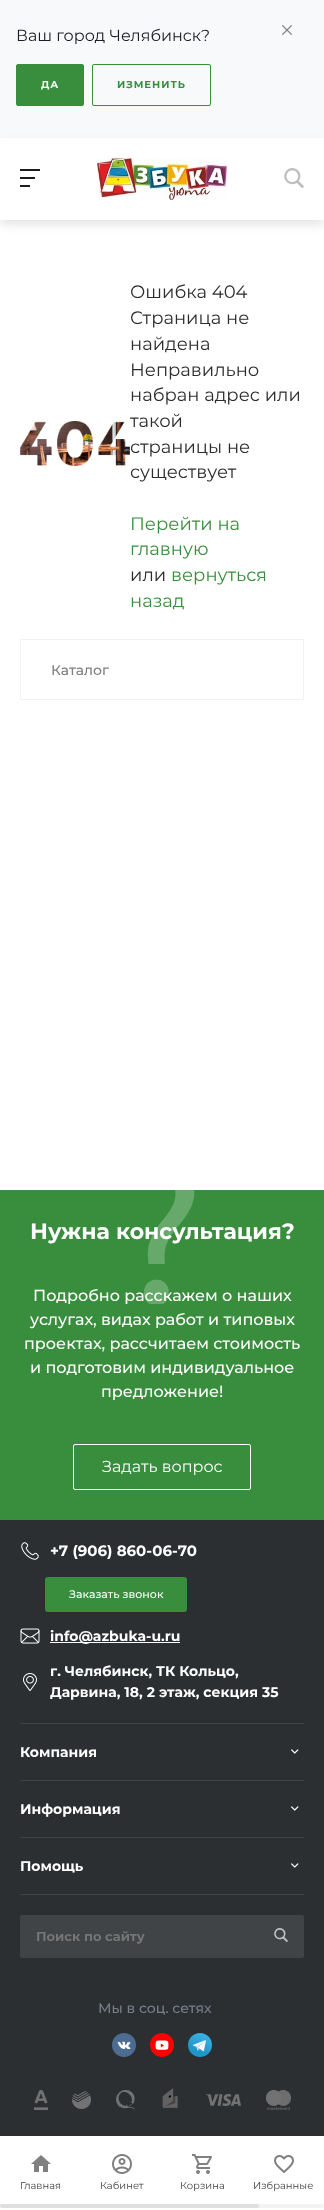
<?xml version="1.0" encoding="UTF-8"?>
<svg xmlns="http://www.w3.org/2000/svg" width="324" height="2210">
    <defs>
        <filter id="blur1" x="-50%" y="-200%" width="200%" height="500%"><feGaussianBlur stdDeviation="5"/></filter>
    </defs>
    <rect width="100%" height="100%" fill="#FFFFFF"/>
    <rect x="0" y="0" width="324" height="138" fill="#F8F9FB"/>
    <text x="16" y="41" font-family="Montserrat" font-size="16" fill="#1B1E25">Ваш город Челябинск?</text>
    <image x="282" y="25" width="10" height="10" href="img_01.png"/>
    <rect x="16.5" y="64.5" width="67" height="41" rx="1.5" fill="#388E3C" stroke="#388E3C"/>
    <text x="41" y="88" font-family="Montserrat" font-size="10" font-weight="700" letter-spacing="1" fill="#FFFFFF">ДА</text>
    <rect x="92.5" y="64.5" width="118" height="41" rx="1.5" fill="none" stroke="#388E3C"/>
    <text x="117" y="88" font-family="Montserrat" font-size="10" font-weight="700" letter-spacing="1" fill="#388E3C">ИЗМЕНИТЬ</text>
    <rect x="0" y="143" width="324" height="82" fill="#000000" fill-opacity="0.1" filter="url(#blur1)"/>
    <rect x="0" y="138" width="324" height="82" fill="#FFFFFF"/>
    <image x="20" y="169" width="20" height="18" href="img_02.png"/>
    <image x="97" y="158" width="130" height="42" href="img_03.png"/>
    <image x="284" y="168" width="20" height="20" href="img_04.png"/>
    <image x="31" y="2155" width="20" height="17" href="img_05.png"/>
    <text x="20" y="2189" font-family="Montserrat" font-size="10" fill="#404040">Главная</text>
    <image x="112" y="2154" width="20" height="20" href="img_06.png"/>
    <text x="100" y="2189" font-family="Montserrat" font-size="10" fill="#404040">Кабинет</text>
    <image x="192" y="2154" width="20" height="20" href="img_07.png"/>
    <text x="180" y="2189" font-family="Montserrat" font-size="10" fill="#404040">Корзина</text>
    <image x="274" y="2155" width="20" height="19" href="img_08.png"/>
    <text x="253" y="2189" font-family="Montserrat" font-size="10" fill="#404040">Избранные</text>
    <rect x="0" y="2204" width="324" height="4" rx="2" fill="#F3F3F3"/>
    <rect x="0" y="2204" width="259" height="4" rx="2" fill="#DFDFDF"/>
    <image x="20" y="421" width="110" height="45" href="img_09.png"/>
    <text font-family="Montserrat" font-size="18" fill="#2D2D2D">
        <tspan x="130" y="298">Ошибка 404</tspan>
        <tspan x="130" y="324">Страница не</tspan>
        <tspan x="130" y="350">найдена</tspan>
        <tspan x="130" y="376">Неправильно</tspan>
        <tspan x="130" y="401">набран адрес или</tspan>
        <tspan x="130" y="427">такой</tspan>
        <tspan x="130" y="453">страницы не</tspan>
        <tspan x="130" y="478">существует</tspan>
    </text>
    <text font-family="Montserrat" font-size="18" fill="#388E3C">
        <tspan x="130" y="530">Перейти на</tspan>
        <tspan x="130" y="555">главную</tspan>
    </text>
    <text x="130" y="581" font-family="Montserrat" font-size="18" fill="#2D2D2D">или</text>
    <text x="171" y="581" font-family="Montserrat" font-size="18" fill="#388E3C">вернуться</text>
    <text x="130" y="607" font-family="Montserrat" font-size="18" fill="#388E3C">назад</text>
    <rect x="20.5" y="639.5" width="283" height="60" fill="none" stroke="#F2F2F2"/>
    <text x="51" y="675" font-family="Montserrat" font-size="14" font-weight="500" fill="#808080">Каталог</text>
    <rect x="0" y="1190" width="324" height="330" fill="#388E3C"/>
    <text x="30" y="1239" font-family="Montserrat" font-size="22" font-weight="700" fill="#FFFFFF">Нужна консультация?</text>
    <image x="143" y="1190" width="52" height="114" href="img_10.png"/>
    <text x="33" y="1301" font-family="Montserrat" font-size="16" font-weight="500" fill="#FFFFFF">Подробно расскажем о наших</text>
    <text x="30" y="1325" font-family="Montserrat" font-size="16" font-weight="500" fill="#FFFFFF">услугах, видах работ и типовых</text>
    <text x="24" y="1349" font-family="Montserrat" font-size="16" font-weight="500" fill="#FFFFFF">проектах, рассчитаем стоимость</text>
    <text x="30" y="1373" font-family="Montserrat" font-size="16" font-weight="500" fill="#FFFFFF">и подготовим индивидуальное</text>
    <text x="101" y="1397" font-family="Montserrat" font-size="16" font-weight="500" fill="#FFFFFF">предложение!</text>
    <rect x="73.5" y="1444.5" width="177" height="45" rx="1.5" fill="none" stroke="#FFFFFF"/>
    <text x="102" y="1472" font-family="Montserrat" font-size="16" fill="#FFFFFF">Задать вопрос</text>
    <rect x="0" y="1520" width="324" height="616" fill="#2B2F32"/>
    <image x="21" y="1542" width="18" height="18" href="img_11.png"/>
    <text x="50" y="1556" font-family="Montserrat" font-size="15" font-weight="700" fill="#FFFFFF">+7 (906) 860-06-70</text>
    <rect x="46" y="1578" width="140" height="33" rx="2" fill="#388E3C" stroke="#388E3C" stroke-width="2"/>
    <text x="69" y="1598" font-family="Montserrat" font-size="11" font-weight="500" fill="#FFFFFF">Заказать звонок</text>
    <image x="20" y="1628" width="20" height="16" href="img_12.png"/>
    <rect x="50" y="1642" width="130" height="1" fill="#FFFFFF"/>
    <text x="50" y="1641" font-family="Montserrat" font-size="14" font-weight="700" fill="#FFFFFF">info@azbuka-u.ru</text>
    <image x="23" y="1673" width="14" height="18" href="img_13.png"/>
    <text font-family="Montserrat" font-size="14" font-weight="700" fill="#FFFFFF">
        <tspan x="50" y="1676">г. Челябинск, ТК Кольцо,</tspan>
        <tspan x="50" y="1697">Дарвина, 18, 2 этаж, секция 35</tspan>
    </text>
    <rect x="20" y="1723" width="284" height="1" fill="#404447"/>
    <rect x="20" y="1780" width="284" height="1" fill="#404447"/>
    <text x="20" y="1757" font-family="Montserrat" font-size="14" font-weight="700" fill="#FFFFFF">Компания</text>
    <image x="291" y="1749" width="8" height="5" href="img_14.png"/>
    <rect x="20" y="1837" width="284" height="1" fill="#404447"/>
    <text x="20" y="1814" font-family="Montserrat" font-size="14" font-weight="700" fill="#FFFFFF">Информация</text>
    <image x="291" y="1806" width="8" height="5" href="img_14.png"/>
    <rect x="20" y="1894" width="284" height="1" fill="#404447"/>
    <text x="20" y="1871" font-family="Montserrat" font-size="14" font-weight="700" fill="#FFFFFF">Помощь</text>
    <image x="291" y="1863" width="8" height="5" href="img_14.png"/>
    <rect x="20.5" y="1915.5" width="283" height="42" rx="1.5" fill="#414447" stroke="#414447"/>
    <text x="36" y="1941" font-family="Montserrat" font-size="13" font-weight="700" fill="#757575">Поиск по сайту</text>
    <image x="274" y="1928" width="14" height="14" href="img_15.png"/>
    <text x="98" y="2013" font-family="Montserrat" font-size="14" font-weight="500" fill="#777E89">Мы в соц. сетях</text>
    <image x="112" y="2033" width="24" height="24" href="img_16.png"/>
    <image x="150" y="2033" width="24" height="24" href="img_17.png"/>
    <image x="188" y="2033" width="24" height="24" href="img_18.png"/>
    <image x="34" y="2090" width="14" height="20" href="img_19.png"/>
    <image x="72" y="2091" width="19" height="18" href="img_20.png"/>
    <image x="116" y="2090" width="19" height="20" href="img_21.png"/>
    <image x="162" y="2088" width="16" height="20" href="img_22.png"/>
    <image x="206" y="2094" width="35" height="12" href="img_23.png"/>
    <image x="266" y="2090" width="25" height="20" href="img_24.png"/>
</svg>
